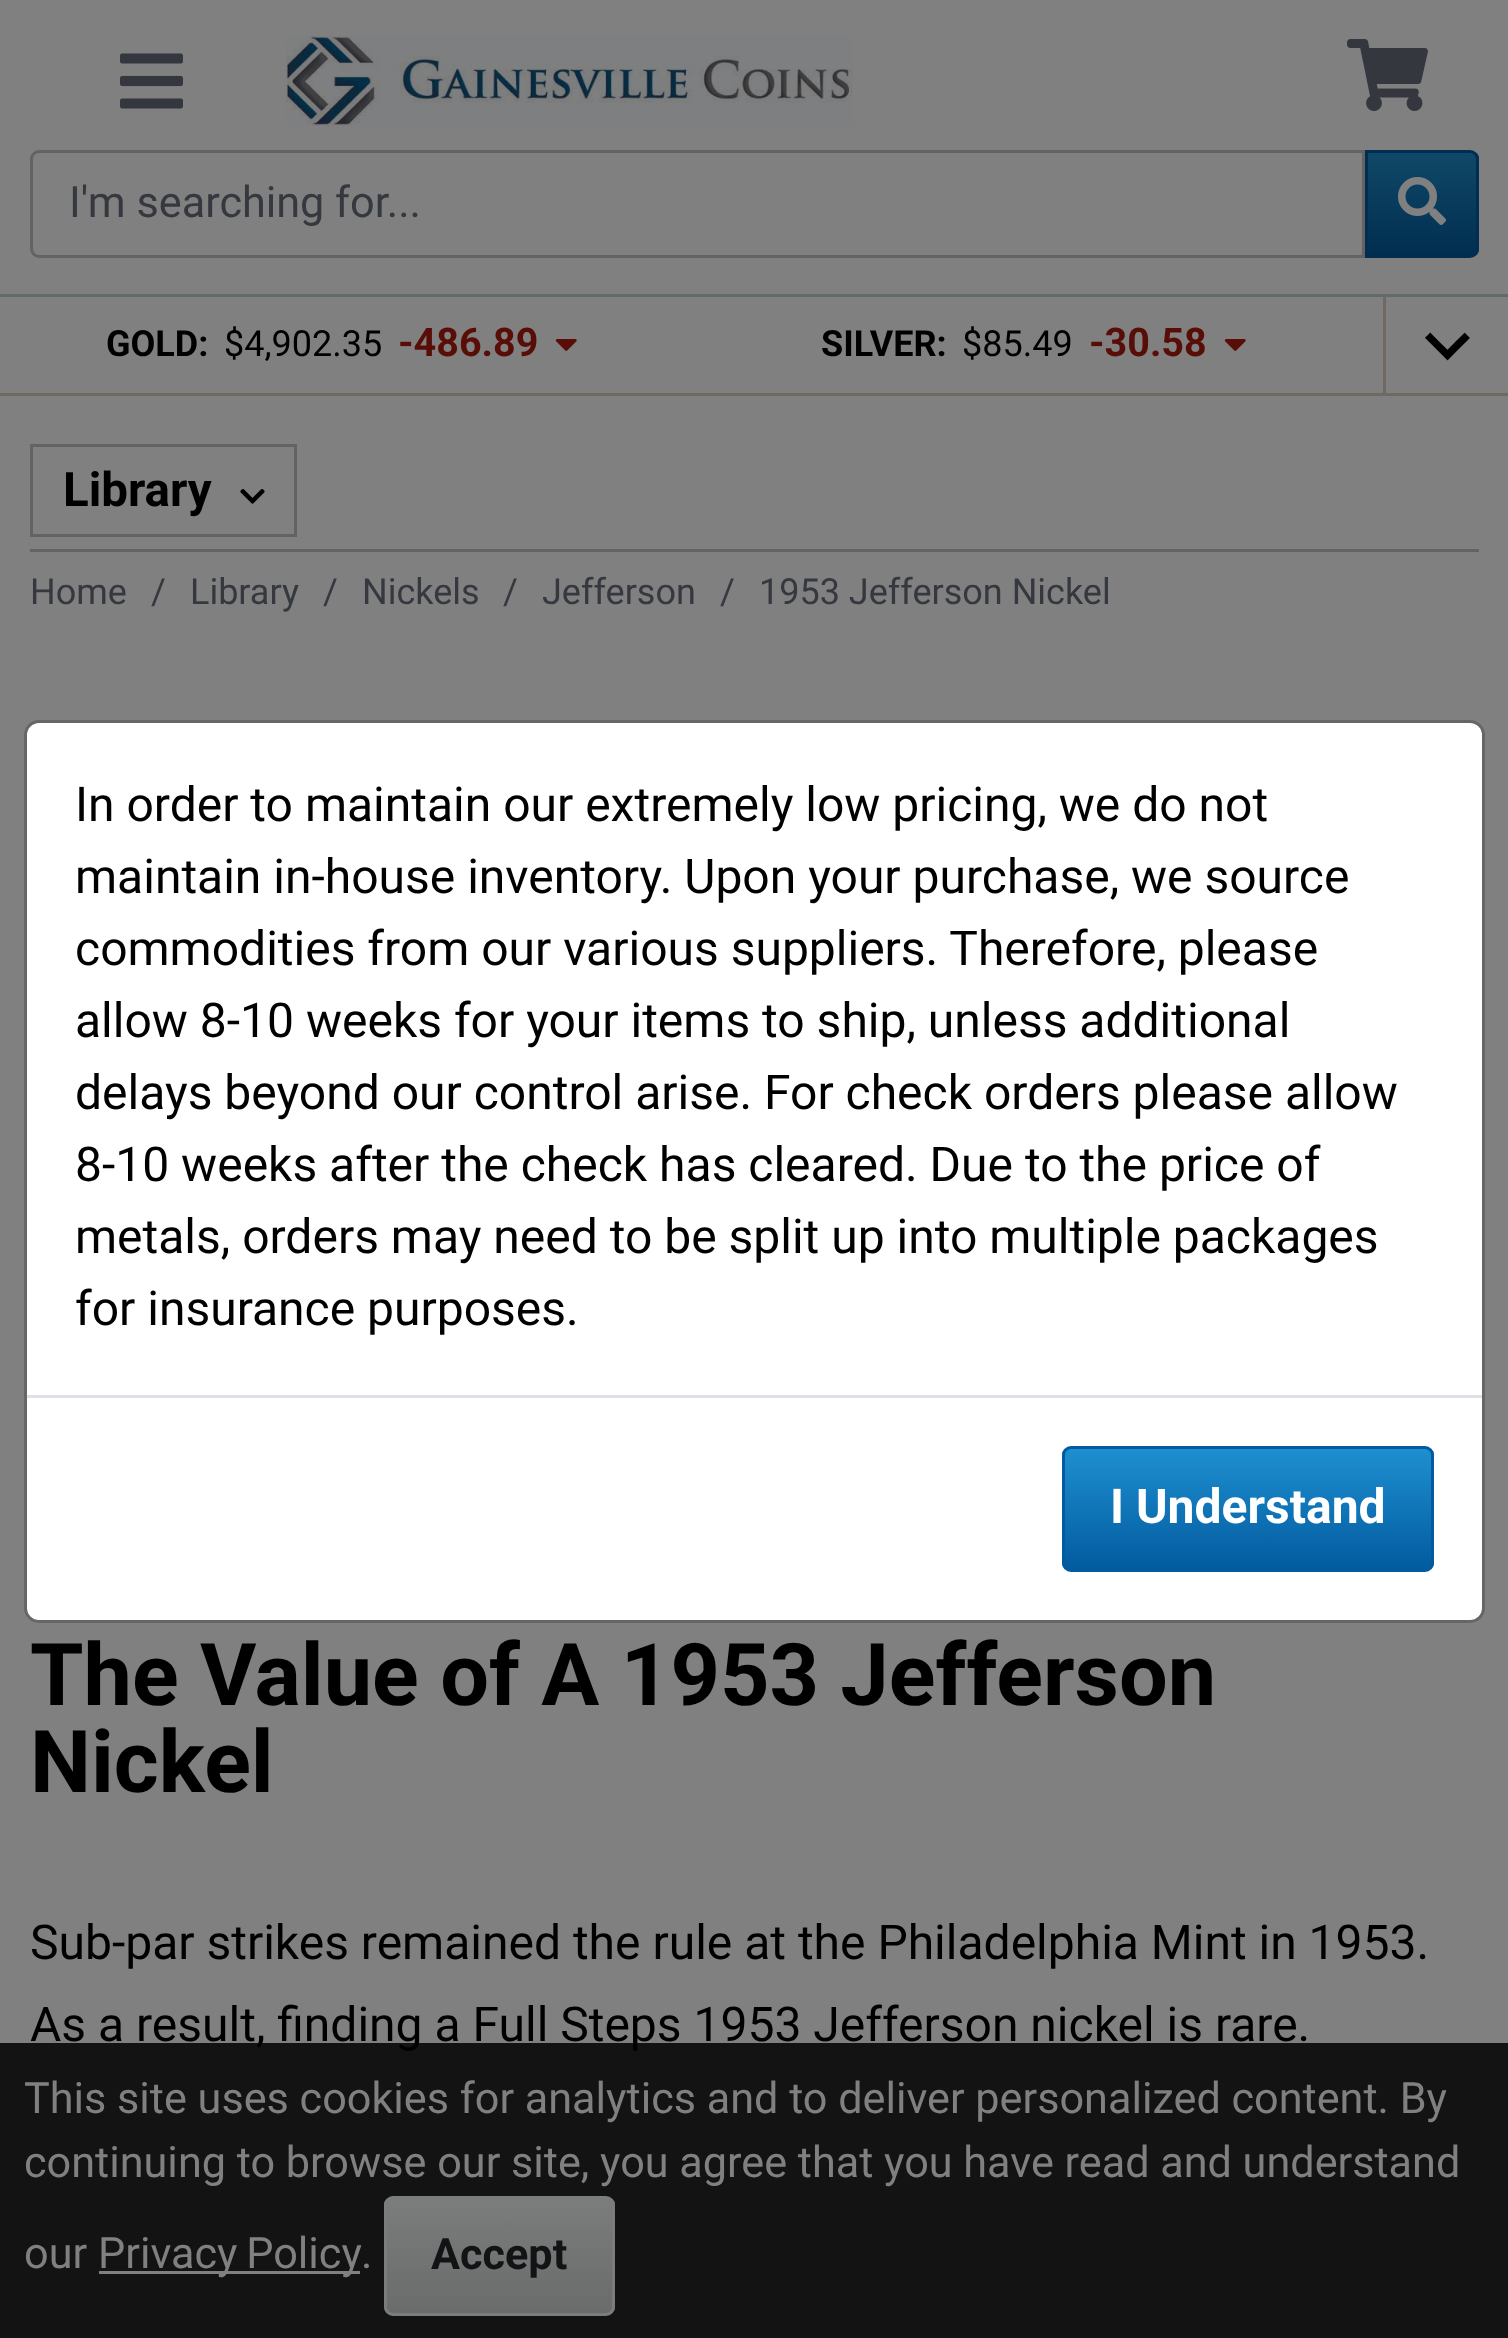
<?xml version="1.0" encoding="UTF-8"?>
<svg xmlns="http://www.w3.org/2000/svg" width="1508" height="2338">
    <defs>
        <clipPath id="clip1"><path d="M 1365 150 H 1470 C 1475 150 1479 154 1479 159 V 249 C 1479 254 1475 258 1470 258 H 1365 Z"/></clipPath>
        <linearGradient id="g1" gradientUnits="userSpaceOnUse" x1="1422" y1="153" x2="1422" y2="255"><stop offset="0" stop-color="#0F4868"/><stop offset="1" stop-color="#012E50"/></linearGradient>
        <clipPath id="clip2"><rect x="1062" y="1446" width="372" height="126" rx="9"/></clipPath>
        <linearGradient id="g2" gradientUnits="userSpaceOnUse" x1="1248" y1="1449" x2="1248" y2="1569"><stop offset="0" stop-color="#1E8FD0"/><stop offset="1" stop-color="#025B9F"/></linearGradient>
        <clipPath id="clip3"><rect x="384" y="2196" width="231" height="120" rx="9"/></clipPath>
        <linearGradient id="g3" gradientUnits="userSpaceOnUse" x1="500" y1="2199" x2="500" y2="2313"><stop offset="0" stop-color="#7B7D7D"/><stop offset="1" stop-color="#6A6C6C"/></linearGradient>
    </defs>
    <rect width="100%" height="100%" fill="#808080"/>
    <rect x="0" y="294" width="1508" height="3" fill="#64696C"/>
    <image x="120" y="53" width="63" height="56" href="img_01.png"/>
    <image x="286" y="36" width="567" height="90" href="img_02.png"/>
    <image x="1347" y="39" width="81" height="72" href="img_03.png"/>
    <path d="M 39 151.5 H 1363.5 V 256.5 H 39 C 35 256.5 31.5 253 31.5 249 V 159 C 31.5 155 35 151.5 39 151.5 Z" fill="none" stroke="#656264" stroke-width="3"/>
    <text x="69" y="217" font-family="Roboto" font-size="43.2" fill="#35383F">I'm searching for...</text>
    <g clip-path="url(#clip1)">
        <rect x="1368" y="153" width="111" height="102" fill="url(#g1)"/>
    </g>
    <path d="M 1366.5 151.5 H 1470 C 1474 151.5 1477.5 155 1477.5 159 V 249 C 1477.5 253 1474 256.5 1470 256.5 H 1366.5 Z" fill="none" stroke="#012E50" stroke-width="3"/>
    <image x="1398" y="177" width="48" height="48" href="img_04.png"/>
    <rect x="0" y="393" width="1508" height="3" fill="#6F6961"/>
    <text x="106" y="356" font-family="Roboto" font-size="36" font-weight="700" fill="#000000">GOLD:</text>
    <text x="224" y="356" font-family="Roboto" font-size="36" fill="#000000">$4,902.35</text>
    <text x="398" y="356" font-family="Roboto" font-size="39.5" font-weight="700" fill="#580D07">-486.89</text>
    <image x="555" y="339" width="22" height="12" href="img_05.png"/>
    <text x="821" y="356" font-family="Roboto" font-size="36" font-weight="700" fill="#000000">SILVER:</text>
    <text x="962" y="356" font-family="Roboto" font-size="36" fill="#000000">$85.49</text>
    <text x="1089" y="356" font-family="Roboto" font-size="39.5" font-weight="700" fill="#580D07">-30.58</text>
    <image x="1224" y="339" width="22" height="12" href="img_05.png"/>
    <rect x="1383" y="297" width="3" height="96" fill="#6F6961"/>
    <image x="1425" y="332" width="45" height="29" href="img_06.png"/>
    <rect x="30" y="549" width="1449" height="3" fill="#656264"/>
    <rect x="31.5" y="445.5" width="264" height="90" fill="none" stroke="#656264" stroke-width="3"/>
    <text x="63" y="506" font-family="Roboto" font-size="47.5" font-weight="700" fill="#000000">Library</text>
    <image x="240" y="489" width="25" height="15" href="img_07.png"/>
    <text x="30" y="604" font-family="Roboto" font-size="36" fill="#35383F">Home</text>
    <text x="151" y="604" font-family="Roboto" font-size="36" fill="#35383F">/</text>
    <text x="190" y="604" font-family="Roboto" font-size="36" fill="#35383F">Library</text>
    <text x="323" y="604" font-family="Roboto" font-size="36" fill="#35383F">/</text>
    <text x="362" y="604" font-family="Roboto" font-size="36" fill="#35383F">Nickels</text>
    <text x="503" y="604" font-family="Roboto" font-size="36" fill="#35383F">/</text>
    <text x="542" y="604" font-family="Roboto" font-size="36" fill="#35383F">Jefferson</text>
    <text x="720" y="604" font-family="Roboto" font-size="36" fill="#35383F">/</text>
    <text x="759" y="604" font-family="Roboto" font-size="36" fill="#35383F">1953 Jefferson Nickel</text>
    <text font-family="Roboto" font-size="86.4" font-weight="700" fill="#000000">
        <tspan x="30" y="1705">The Value of A 1953 Jefferson</tspan>
        <tspan x="30" y="1792">Nickel</tspan>
    </text>
    <text font-family="Roboto" font-size="48" fill="#000000">
        <tspan x="30" y="1959">Sub-par strikes remained the rule at the Philadelphia Mint in 1953.</tspan>
        <tspan x="30" y="2041">As a result, finding a Full Steps 1953 Jefferson nickel is rare.</tspan>
    </text>
    <rect x="27" y="723" width="1455" height="897" rx="12" fill="#FFFFFF"/>
    <rect x="25.5" y="721.5" width="1458" height="900" rx="13.5" fill="none" stroke="#000000" stroke-opacity="0.2" stroke-width="3"/>
    <text font-family="Roboto" font-size="48" fill="#000000">
        <tspan x="75" y="821">In order to maintain our extremely low pricing, we do not</tspan>
        <tspan x="75" y="893">maintain in-house inventory. Upon your purchase, we source</tspan>
        <tspan x="75" y="965">commodities from our various suppliers. Therefore, please</tspan>
        <tspan x="75" y="1037">allow 8-10 weeks for your items to ship, unless additional</tspan>
        <tspan x="75" y="1109">delays beyond our control arise. For check orders please allow</tspan>
        <tspan x="75" y="1181">8-10 weeks after the check has cleared. Due to the price of</tspan>
        <tspan x="75" y="1253">metals, orders may need to be split up into multiple packages</tspan>
        <tspan x="75" y="1325">for insurance purposes.</tspan>
    </text>
    <rect x="27" y="1395" width="1455" height="3" fill="#DEE2E6"/>
    <g clip-path="url(#clip2)">
        <rect x="1062" y="1449" width="372" height="120" fill="url(#g2)"/>
    </g>
    <rect x="1063.5" y="1447.5" width="369" height="123" rx="7.5" fill="none" stroke="#025B9F" stroke-width="3"/>
    <text x="1110" y="1523" font-family="Roboto" font-size="48" font-weight="700" fill="#FFFFFF">I Understand</text>
    <rect x="0" y="2043" width="1508" height="295" fill="#000000" fill-opacity="0.85"/>
    <text font-family="Roboto" font-size="43.2" fill="#808080">
        <tspan x="24" y="2113">This site uses cookies for analytics and to deliver personalized content. By</tspan>
        <tspan x="24" y="2177">continuing to browse our site, you agree that you have read and understand</tspan>
    </text>
    <text x="24" y="2268" font-family="Roboto" font-size="43.2" fill="#808080">our</text>
    <rect x="99" y="2271" width="261" height="3" fill="#808080"/>
    <text x="98" y="2268" word-spacing="-2" font-family="Roboto" font-size="43.2" fill="#808080">Privacy Policy</text>
    <text x="361" y="2268" font-family="Roboto" font-size="43.2" fill="#808080">.</text>
    <g clip-path="url(#clip3)">
        <rect x="384" y="2199" width="231" height="114" fill="url(#g3)"/>
    </g>
    <rect x="385.5" y="2197.5" width="228" height="117" rx="7.5" fill="none" stroke="#7B7D7D" stroke-width="3"/>
    <text x="431" y="2269" font-family="Roboto" font-size="43.2" font-weight="700" fill="#111315">Accept</text>
</svg>
